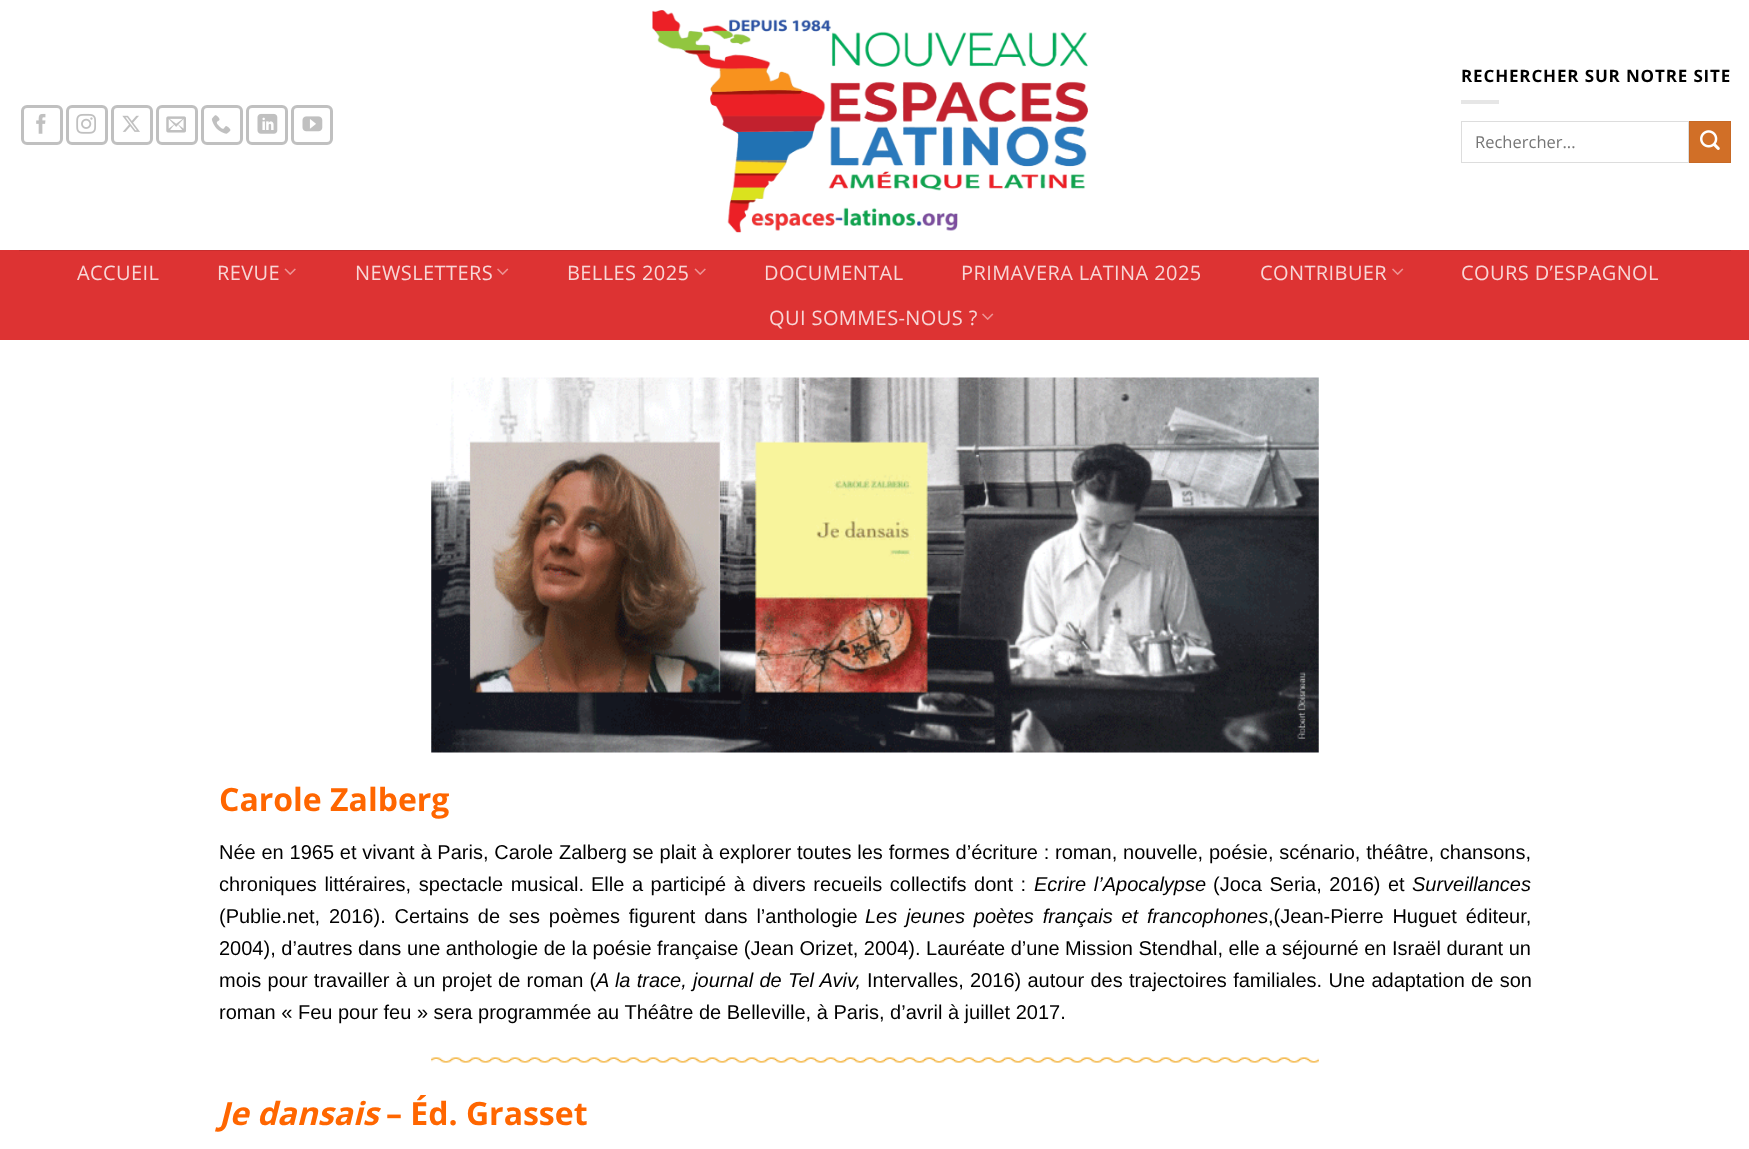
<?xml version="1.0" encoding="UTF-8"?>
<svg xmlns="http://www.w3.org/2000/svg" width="1749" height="1149">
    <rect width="100%" height="100%" fill="#FFFFFF"/>
    <rect x="22.5" y="106.5" width="39" height="37" rx="4.5" fill="none" stroke="#C0C0C0" stroke-width="3"/>
    <image x="36" y="113" width="10" height="21" href="img_01.png"/>
    <rect x="67.5" y="106.5" width="39" height="37" rx="4.5" fill="none" stroke="#C0C0C0" stroke-width="3"/>
    <image x="76" y="113" width="20" height="21" href="img_02.png"/>
    <rect x="112.5" y="106.5" width="39" height="37" rx="4.5" fill="none" stroke="#C0C0C0" stroke-width="3"/>
    <image x="122" y="115" width="18" height="17" href="img_03.png"/>
    <rect x="157.5" y="106.5" width="39" height="37" rx="4.5" fill="none" stroke="#C0C0C0" stroke-width="3"/>
    <image x="166" y="116" width="20" height="17" href="img_04.png"/>
    <rect x="202.5" y="106.5" width="39" height="37" rx="4.5" fill="none" stroke="#C0C0C0" stroke-width="3"/>
    <image x="211" y="115" width="20" height="19" href="img_05.png"/>
    <rect x="247.5" y="106.5" width="39" height="37" rx="4.5" fill="none" stroke="#C0C0C0" stroke-width="3"/>
    <image x="257" y="113" width="21" height="21" href="img_06.png"/>
    <rect x="292.5" y="106.5" width="39" height="37" rx="4.5" fill="none" stroke="#C0C0C0" stroke-width="3"/>
    <image x="302" y="116" width="21" height="16" href="img_07.png"/>
    <image x="652" y="10" width="437" height="223" href="img_08.png"/>
    <text x="1461" y="82" font-family="Open Sans" font-size="17" font-weight="700" letter-spacing="0.85" fill="#000000">RECHERCHER SUR NOTRE SITE</text>
    <rect x="1461" y="100" width="38" height="4" fill="#E6E6E6"/>
    <rect x="1461.5" y="121.5" width="227" height="41" fill="none" stroke="#DDDDDD"/>
    <text x="1475" y="148" font-family="Open Sans" font-size="16.5" fill="#757575">Rechercher...</text>
    <rect x="1689.5" y="121.5" width="41" height="41" fill="#D16F27" stroke="#C76925"/>
    <image x="1700" y="130" width="20" height="20" href="img_09.png"/>
    <rect x="0" y="250" width="1749" height="90" fill="#DD3333"/>
    <rect x="19" y="250" width="1712" height="1" fill="#C72E2E"/>
    <text x="77" y="280" font-family="Open Sans" font-size="20" letter-spacing="0.4" fill="#F8D6D6">ACCUEIL</text>
    <text x="217" y="280" font-family="Open Sans" font-size="20" letter-spacing="0.4" fill="#F8D6D6">REVUE</text>
    <image x="284" y="268" width="12" height="7" href="img_10.png"/>
    <text x="355" y="280" font-family="Open Sans" font-size="20" letter-spacing="0.4" fill="#F8D6D6">NEWSLETTERS</text>
    <image x="497" y="268" width="12" height="7" href="img_11.png"/>
    <text x="567" y="280" font-family="Open Sans" font-size="20" letter-spacing="0.4" fill="#F8D6D6">BELLES 2025</text>
    <image x="694" y="268" width="12" height="7" href="img_10.png"/>
    <text x="764" y="280" font-family="Open Sans" font-size="20" letter-spacing="0.4" fill="#F8D6D6">DOCUMENTAL</text>
    <text x="961" y="280" font-family="Open Sans" font-size="20" letter-spacing="0.4" fill="#F8D6D6">PRIMAVERA LATINA 2025</text>
    <text x="1260" y="280" font-family="Open Sans" font-size="20" letter-spacing="0.4" fill="#F8D6D6">CONTRIBUER</text>
    <image x="1392" y="268" width="12" height="7" href="img_11.png"/>
    <text x="1461" y="280" font-family="Open Sans" font-size="20" letter-spacing="0.4" fill="#F8D6D6">COURS D’ESPAGNOL</text>
    <text x="769" y="325" font-family="Open Sans" font-size="20" letter-spacing="0.4" fill="#F8D6D6">QUI SOMMES-NOUS ?</text>
    <image x="982" y="313" width="12" height="7" href="img_11.png"/>
    <image x="431" y="377" width="888" height="376" href="img_12.png"/>
    <text x="219" y="811" font-family="Open Sans" font-size="32" font-weight="700" fill="#FF6600">Carole Zalberg</text>
    <text font-family="Liberation Sans" font-size="20" fill="#000000">
        <tspan x="219" y="859" word-spacing="0.25">Née en 1965 et vivant à Paris, Carole Zalberg se plait à explorer toutes les formes d’écriture : roman, nouvelle, poésie, scénario, théâtre, chansons,</tspan>
        <tspan x="219" y="891" word-spacing="2">chroniques littéraires, spectacle musical.</tspan>
    </text>
    <text x="591" y="891" word-spacing="2" font-family="Liberation Sans" font-size="20" fill="#000000">Elle a participé à divers recueils collectifs dont :</text>
    <text x="1034" y="891" word-spacing="2" font-family="Liberation Sans" font-size="20" font-style="italic" fill="#000000">Ecrire l’Apocalypse</text>
    <text x="1213" y="891" word-spacing="2" font-family="Liberation Sans" font-size="20" fill="#000000">(Joca Seria, 2016) et</text>
    <text x="1412" y="891" font-family="Liberation Sans" font-size="20" font-style="italic" fill="#000000">Surveillances</text>
    <text x="219" y="923" word-spacing="3.25" font-family="Liberation Sans" font-size="20" fill="#000000">(Publie.net, 2016). Certains de ses poèmes figurent dans l’anthologie</text>
    <text x="865" y="923" word-spacing="3.25" font-family="Liberation Sans" font-size="20" font-style="italic" fill="#000000">Les jeunes poètes français et francophones</text>
    <text x="1268" y="923" word-spacing="3.25" font-family="Liberation Sans" font-size="20" fill="#000000">,(Jean-Pierre Huguet éditeur,</text>
    <text font-family="Liberation Sans" font-size="20" fill="#000000">
        <tspan x="219" y="955">2004), d’autres dans une anthologie de la poésie française (Jean Orizet, 2004). Lauréate d’une Mission Stendhal, elle a séjourné en Israël durant un</tspan>
        <tspan x="219" y="987" word-spacing="0.75">mois pour travailler à un projet de roman (</tspan>
    </text>
    <text x="596" y="987" word-spacing="0.75" font-family="Liberation Sans" font-size="20" font-style="italic" fill="#000000">A la trace, journal de Tel Aviv,</text>
    <text x="867" y="987" word-spacing="0.75" font-family="Liberation Sans" font-size="20" fill="#000000">Intervalles, 2016) autour des trajectoires familiales. Une adaptation de son</text>
    <text x="219" y="1019" font-family="Liberation Sans" font-size="20" fill="#000000">roman « Feu pour feu » sera programmée au Théâtre de Belleville, à Paris, d’avril à juillet 2017.</text>
    <image x="431" y="1057" width="888" height="6" href="img_13.png"/>
    <text x="219" y="1125" font-family="Open Sans" font-size="32" font-weight="700" font-style="italic" fill="#FF6600">Je dansais</text>
    <text x="386" y="1125" font-family="Open Sans" font-size="32" font-weight="700" fill="#FF6600">– Éd. Grasset</text>
</svg>
